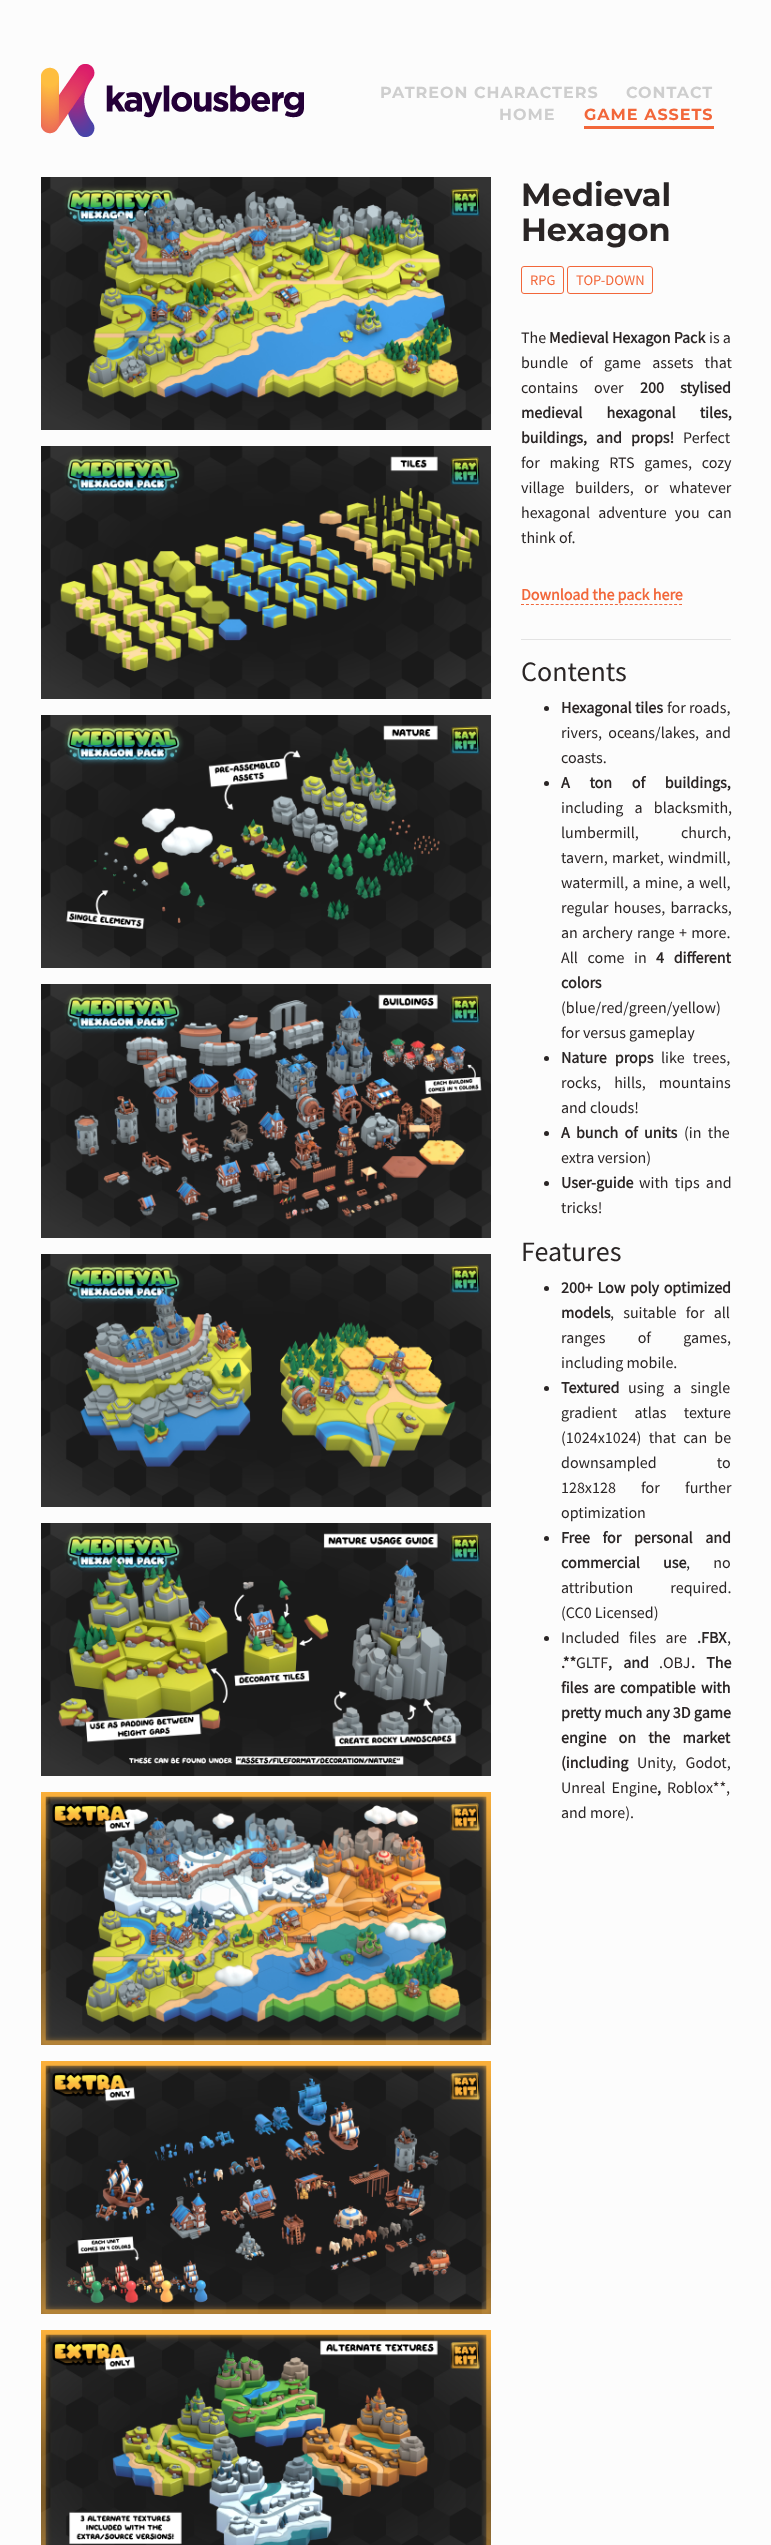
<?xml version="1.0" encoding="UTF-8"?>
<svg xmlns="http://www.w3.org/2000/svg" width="771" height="2545">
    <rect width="100%" height="100%" fill="#FCFCFC"/>
    <image x="41" y="64" width="263" height="73" href="img_01.png"/>
    <text x="380" y="98" font-family="Montserrat" font-size="16" font-weight="700" letter-spacing="1" fill="#CECECE">PATREON CHARACTERS</text>
    <text x="626" y="98" font-family="Montserrat" font-size="16" font-weight="700" letter-spacing="1" fill="#CECECE">CONTACT</text>
    <text x="499" y="120" font-family="Montserrat" font-size="16" font-weight="700" letter-spacing="1" fill="#CECECE">HOME</text>
    <text x="584" y="120" font-family="Montserrat" font-size="16" font-weight="700" letter-spacing="1" fill="#F2673A">GAME ASSETS</text>
    <rect x="584" y="126" width="130" height="3" fill="#F2673A"/>
    <image x="41" y="177" width="450" height="253" href="img_02.png"/>
    <image x="41" y="446" width="450" height="253" href="img_03.png"/>
    <image x="41" y="715" width="450" height="253" href="img_04.png"/>
    <image x="41" y="984" width="450" height="254" href="img_05.png"/>
    <image x="41" y="1254" width="450" height="253" href="img_06.png"/>
    <image x="41" y="1523" width="450" height="253" href="img_07.png"/>
    <image x="41" y="1792" width="450" height="253" href="img_08.png"/>
    <image x="41" y="2061" width="450" height="253" href="img_09.png"/>
    <image x="41" y="2330" width="450" height="215" href="img_10.png"/>
    <text font-family="Montserrat" font-size="32" font-weight="700" fill="#2A2525">
        <tspan x="521" y="206">Medieval</tspan>
        <tspan x="521" y="241">Hexagon</tspan>
    </text>
    <rect x="521.5" y="266.5" width="42" height="27" rx="2.5" fill="none" stroke="#F2673A"/>
    <text x="530" y="285" font-family="Source Sans Pro" font-size="14.5" fill="#F2673A">RPG</text>
    <rect x="567.5" y="266.5" width="85" height="27" rx="2.5" fill="none" stroke="#F2673A"/>
    <text x="576" y="285" font-family="Source Sans Pro" font-size="14.5" fill="#F2673A">TOP-DOWN</text>
    <text x="521" y="343" font-family="Source Sans Pro" font-size="16" fill="#2A2525">The</text>
    <text x="549" y="343" font-family="Source Sans Pro" font-size="16" font-weight="700" fill="#2A2525">Medieval Hexagon Pack</text>
    <text x="709" y="343" font-family="Source Sans Pro" font-size="16" fill="#2A2525">is a</text>
    <text font-family="Source Sans Pro" font-size="16" fill="#2A2525">
        <tspan x="521" y="368" word-spacing="8">bundle of game assets that</tspan>
        <tspan x="521" y="393" word-spacing="13">contains over</tspan>
    </text>
    <text x="640" y="393" word-spacing="13" font-family="Source Sans Pro" font-size="16" font-weight="700" fill="#2A2525">200 stylised</text>
    <text font-family="Source Sans Pro" font-size="16" font-weight="700" fill="#2A2525">
        <tspan x="521" y="418" word-spacing="21">medieval hexagonal tiles,</tspan>
        <tspan x="521" y="443" word-spacing="6">buildings, and props!</tspan>
    </text>
    <text x="683" y="443" font-family="Source Sans Pro" font-size="16" fill="#2A2525">Perfect</text>
    <text font-family="Source Sans Pro" font-size="16" fill="#2A2525">
        <tspan x="521" y="468" word-spacing="6.5">for making RTS games, cozy</tspan>
        <tspan x="521" y="493" word-spacing="7.5">village builders, or whatever</tspan>
        <tspan x="521" y="518" word-spacing="5">hexagonal adventure you can</tspan>
        <tspan x="521" y="543">think of.</tspan>
    </text>
    <text x="521" y="600" font-family="Source Sans Pro" font-size="16" font-weight="700" fill="#F2673A">Download the pack here</text>
    <path d="M 521 604.5 H 682" fill="none" stroke="#F2673A" stroke-dasharray="3 1.94"/>
    <rect x="521" y="639" width="210" height="1" fill="#E3E3E3"/>
    <text x="521" y="681" font-family="Source Sans Pro" font-size="28" fill="#2A2525">Contents</text>
    <circle cx="546.5" cy="708.5" r="2.5" fill="#2A2525"/>
    <text x="561" y="713" font-family="Source Sans Pro" font-size="16" font-weight="700" fill="#2A2525">Hexagonal tiles</text>
    <text x="667" y="713" font-family="Source Sans Pro" font-size="16" fill="#2A2525">for roads,</text>
    <text font-family="Source Sans Pro" font-size="16" fill="#2A2525">
        <tspan x="561" y="738" word-spacing="3">rivers, oceans/lakes, and</tspan>
        <tspan x="561" y="763">coasts.</tspan>
    </text>
    <circle cx="546.5" cy="783.5" r="2.5" fill="#2A2525"/>
    <text x="561" y="788" word-spacing="16.5" font-family="Source Sans Pro" font-size="16" font-weight="700" fill="#2A2525">A ton of buildings,</text>
    <text font-family="Source Sans Pro" font-size="16" fill="#2A2525">
        <tspan x="561" y="813" word-spacing="8">including a blacksmith,</tspan>
        <tspan x="561" y="838" word-spacing="39">lumbermill, church,</tspan>
        <tspan x="561" y="863" word-spacing="1">tavern, market, windmill,</tspan>
        <tspan x="561" y="888" word-spacing="1">watermill, a mine, a well,</tspan>
        <tspan x="561" y="913" word-spacing="2">regular houses, barracks,</tspan>
        <tspan x="561" y="938" word-spacing="1">an archery range + more.</tspan>
        <tspan x="561" y="963" word-spacing="6.5">All come in</tspan>
    </text>
    <text x="656" y="963" word-spacing="6.5" font-family="Source Sans Pro" font-size="16" font-weight="700" fill="#2A2525">4 different</text>
    <text x="561" y="988" font-family="Source Sans Pro" font-size="16" font-weight="700" fill="#2A2525">colors</text>
    <text font-family="Source Sans Pro" font-size="16" fill="#2A2525">
        <tspan x="561" y="1013">(blue/red/green/yellow)</tspan>
        <tspan x="561" y="1038">for versus gameplay</tspan>
    </text>
    <circle cx="546.5" cy="1058.5" r="2.5" fill="#2A2525"/>
    <text x="561" y="1063" word-spacing="5" font-family="Source Sans Pro" font-size="16" font-weight="700" fill="#2A2525">Nature props</text>
    <text x="661" y="1063" word-spacing="5" font-family="Source Sans Pro" font-size="16" fill="#2A2525">like trees,</text>
    <text font-family="Source Sans Pro" font-size="16" fill="#2A2525">
        <tspan x="561" y="1088" word-spacing="10">rocks, hills, mountains</tspan>
        <tspan x="561" y="1113">and clouds!</tspan>
    </text>
    <circle cx="546.5" cy="1133.5" r="2.5" fill="#2A2525"/>
    <text x="561" y="1138" word-spacing="3" font-family="Source Sans Pro" font-size="16" font-weight="700" fill="#2A2525">A bunch of units</text>
    <text x="684" y="1138" word-spacing="3" font-family="Source Sans Pro" font-size="16" fill="#2A2525">(in the</text>
    <text x="561" y="1163" font-family="Source Sans Pro" font-size="16" fill="#2A2525">extra version)</text>
    <circle cx="546.5" cy="1183.5" r="2.5" fill="#2A2525"/>
    <text x="561" y="1188" font-family="Source Sans Pro" font-size="16" font-weight="700" fill="#2A2525">User-guide</text>
    <text x="639" y="1188" word-spacing="3" font-family="Source Sans Pro" font-size="16" fill="#2A2525">with tips and</text>
    <text x="561" y="1213" font-family="Source Sans Pro" font-size="16" fill="#2A2525">tricks!</text>
    <text x="521" y="1261" font-family="Source Sans Pro" font-size="28" fill="#2A2525">Features</text>
    <circle cx="546.5" cy="1288.5" r="2.5" fill="#2A2525"/>
    <text font-family="Source Sans Pro" font-size="16" font-weight="700" fill="#2A2525">
        <tspan x="561" y="1293" word-spacing="1.5">200+ Low poly optimized</tspan>
        <tspan x="561" y="1318">models</tspan>
    </text>
    <text x="610" y="1318" word-spacing="6" font-family="Source Sans Pro" font-size="16" fill="#2A2525">, suitable for all</text>
    <text font-family="Source Sans Pro" font-size="16" fill="#2A2525">
        <tspan x="561" y="1343" word-spacing="29">ranges of games,</tspan>
        <tspan x="561" y="1368">including mobile.</tspan>
    </text>
    <circle cx="546.5" cy="1388.5" r="2.5" fill="#2A2525"/>
    <text x="561" y="1393" font-family="Source Sans Pro" font-size="16" font-weight="700" fill="#2A2525">Textured</text>
    <text x="628" y="1393" word-spacing="6" font-family="Source Sans Pro" font-size="16" fill="#2A2525">using a single</text>
    <text font-family="Source Sans Pro" font-size="16" fill="#2A2525">
        <tspan x="561" y="1418" word-spacing="14">gradient atlas texture</tspan>
        <tspan x="561" y="1443" word-spacing="4">(1024x1024) that can be</tspan>
        <tspan x="561" y="1468" word-spacing="57">downsampled to</tspan>
        <tspan x="561" y="1493" word-spacing="22">128x128 for further</tspan>
        <tspan x="561" y="1518">optimization</tspan>
    </text>
    <circle cx="546.5" cy="1538.5" r="2.5" fill="#2A2525"/>
    <text font-family="Source Sans Pro" font-size="16" font-weight="700" fill="#2A2525">
        <tspan x="561" y="1543" word-spacing="9.5">Free for personal and</tspan>
        <tspan x="561" y="1568" word-spacing="20">commercial use</tspan>
    </text>
    <text x="686" y="1568" word-spacing="20" font-family="Source Sans Pro" font-size="16" fill="#2A2525">, no</text>
    <text font-family="Source Sans Pro" font-size="16" fill="#2A2525">
        <tspan x="561" y="1593" word-spacing="34">attribution required.</tspan>
        <tspan x="561" y="1618">(CC0 Licensed)</tspan>
    </text>
    <circle cx="546.5" cy="1638.5" r="2.5" fill="#2A2525"/>
    <text x="561" y="1643" word-spacing="6" font-family="Source Sans Pro" font-size="16" fill="#2A2525">Included files are</text>
    <text x="697" y="1643" font-family="Source Sans Pro" font-size="16" font-weight="700" fill="#2A2525">.FBX</text>
    <text x="727" y="1643" font-family="Source Sans Pro" font-size="16" fill="#2A2525">,</text>
    <text x="561" y="1668" font-family="Source Sans Pro" font-size="16" font-weight="700" fill="#2A2525">.**</text>
    <text x="576" y="1668" font-family="Source Sans Pro" font-size="16" fill="#2A2525">GLTF</text>
    <text x="608" y="1668" word-spacing="8" font-family="Source Sans Pro" font-size="16" font-weight="700" fill="#2A2525">, and</text>
    <text x="659" y="1668" font-family="Source Sans Pro" font-size="16" fill="#2A2525">.OBJ</text>
    <text x="691" y="1668" word-spacing="8" font-family="Source Sans Pro" font-size="16" font-weight="700" fill="#2A2525">. The</text>
    <text font-family="Source Sans Pro" font-size="16" font-weight="700" fill="#2A2525">
        <tspan x="561" y="1693" word-spacing="2">files are compatible with</tspan>
        <tspan x="561" y="1718">pretty much any 3D game</tspan>
        <tspan x="561" y="1743" word-spacing="9">engine on the market</tspan>
        <tspan x="561" y="1768">(including</tspan>
    </text>
    <text x="637" y="1768" word-spacing="6" font-family="Source Sans Pro" font-size="16" fill="#2A2525">Unity, Godot,</text>
    <text x="561" y="1793" word-spacing="3" font-family="Source Sans Pro" font-size="16" fill="#2A2525">Unreal Engine</text>
    <text x="657" y="1793" font-family="Source Sans Pro" font-size="16" font-weight="700" fill="#2A2525">,</text>
    <text x="667" y="1793" font-family="Source Sans Pro" font-size="16" fill="#2A2525">Roblox**,</text>
    <text x="561" y="1818" font-family="Source Sans Pro" font-size="16" fill="#2A2525">and more).</text>
</svg>
